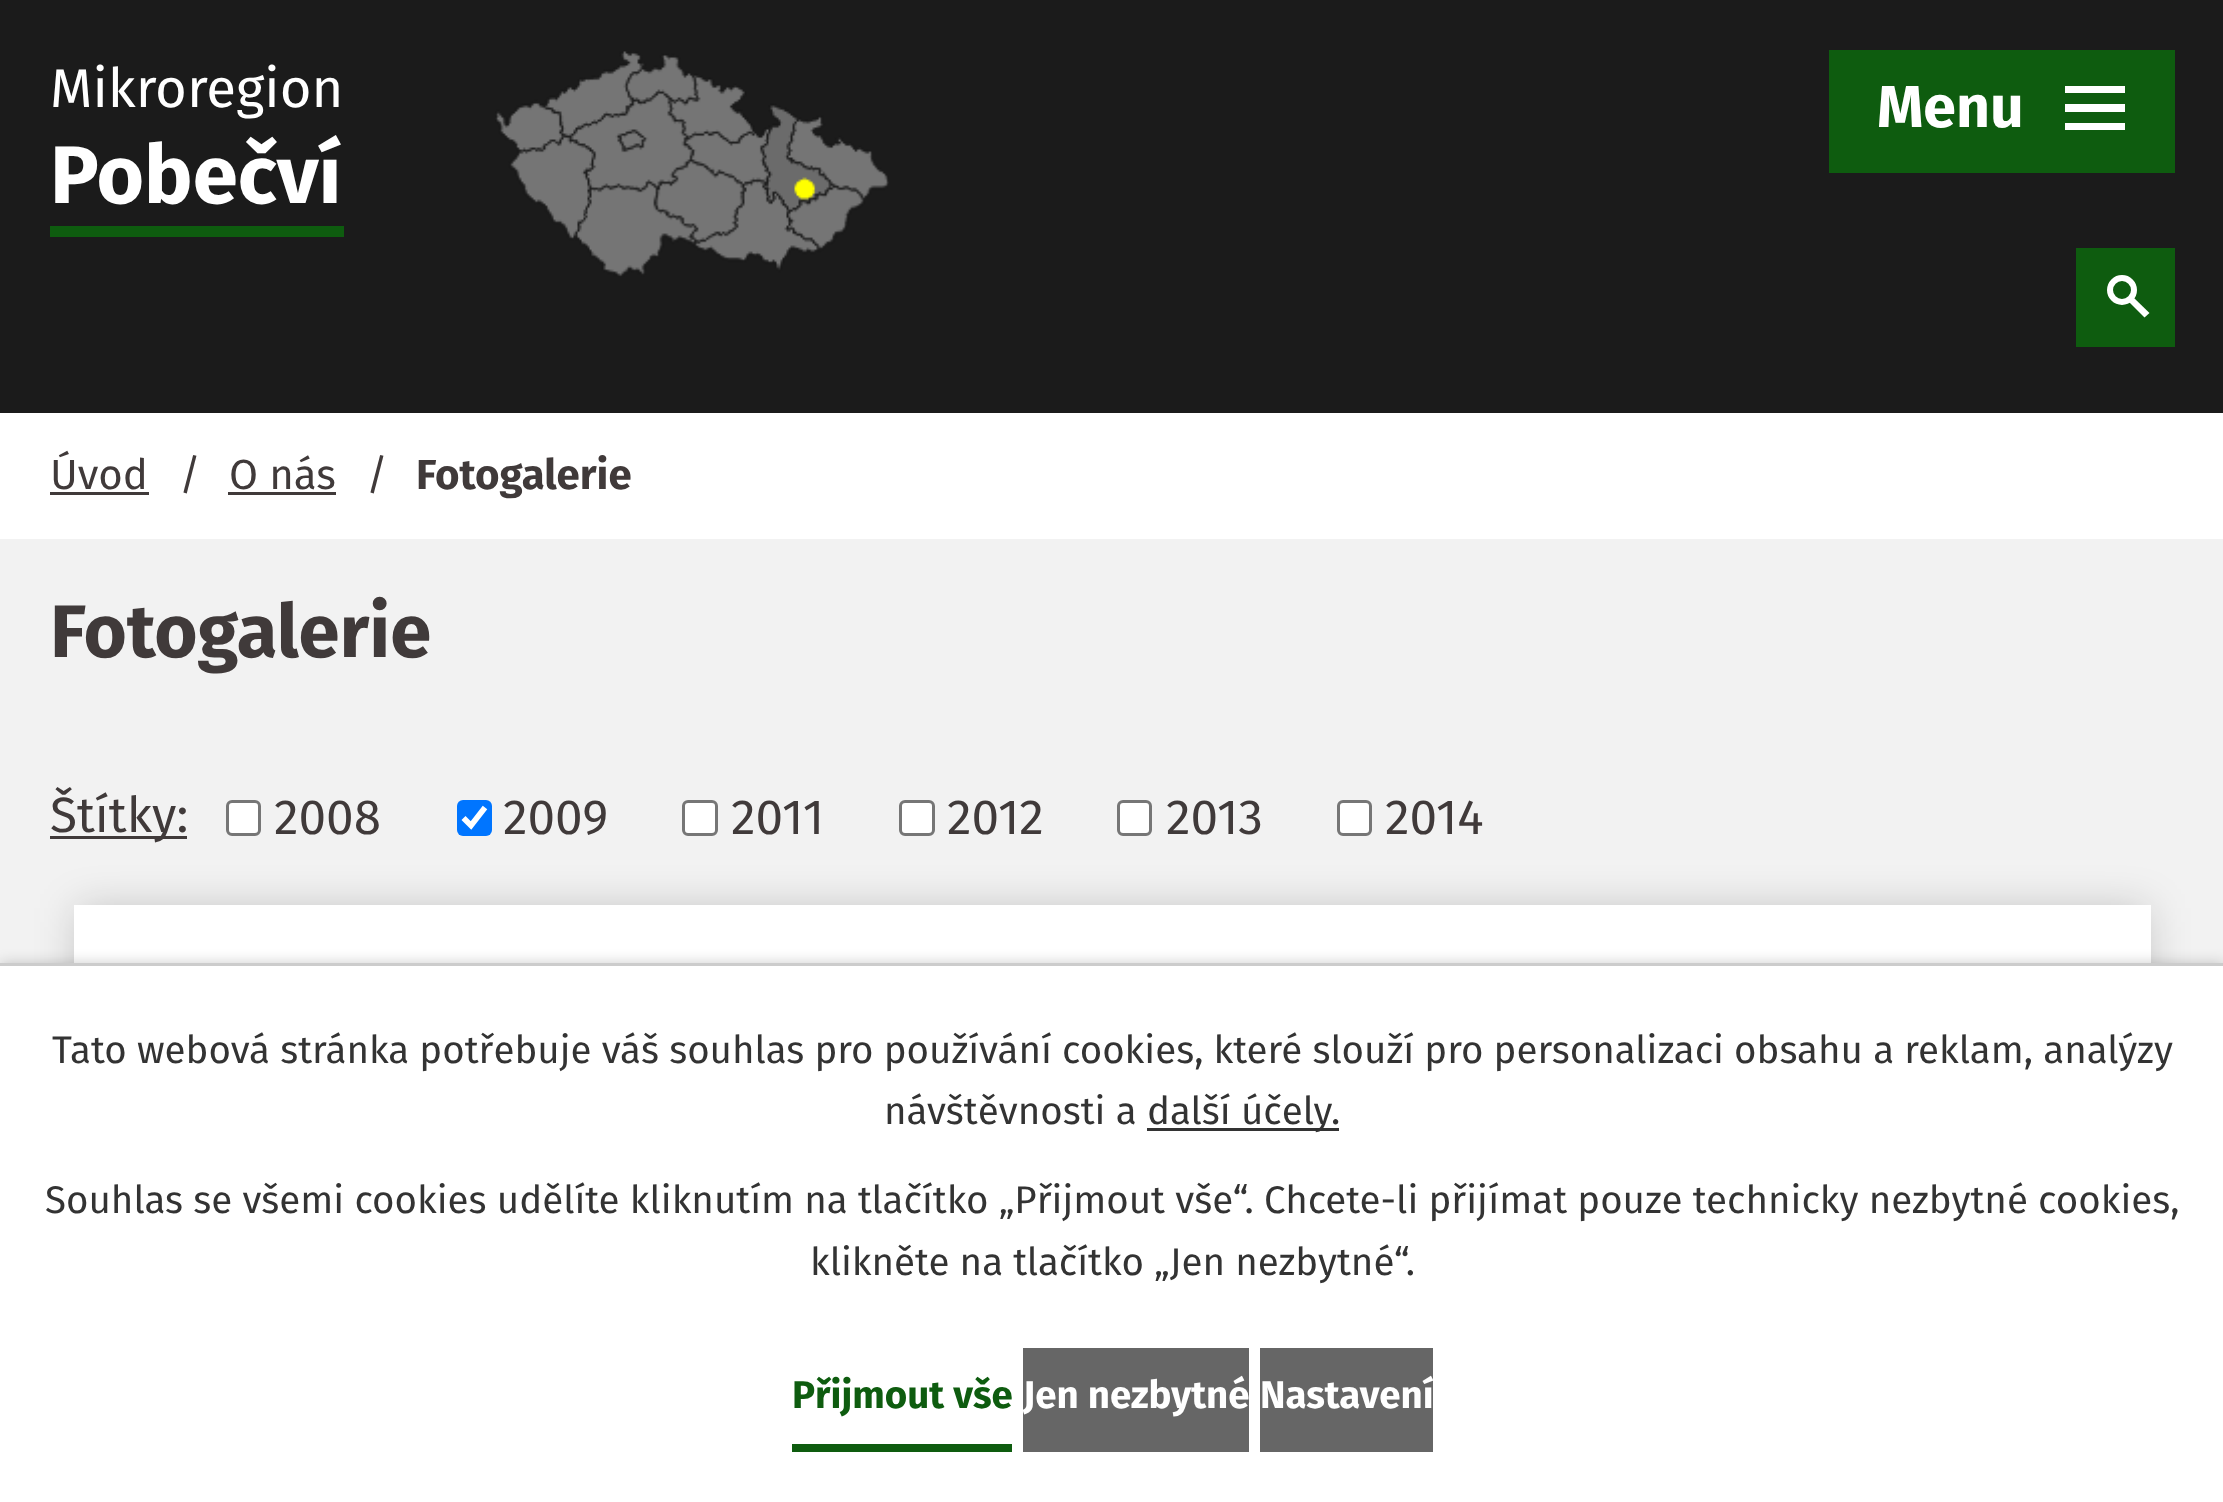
<?xml version="1.0" encoding="UTF-8"?>
<svg xmlns="http://www.w3.org/2000/svg" width="2223" height="1502">
    <defs>
        <filter id="blur1" x="-50%" y="-200%" width="200%" height="500%"><feGaussianBlur stdDeviation="20.5"/></filter>
        <filter id="blur2" x="-50%" y="-200%" width="200%" height="500%"><feGaussianBlur stdDeviation="7"/></filter>
    </defs>
    <rect width="100%" height="100%" fill="#F2F2F2"/>
    <rect x="0" y="0" width="2223" height="413" fill="#1B1B1B"/>
    <text x="50" y="107" font-family="Fira Sans" font-size="54.5" fill="#FFFFFF">Mikroregion</text>
    <text x="50" y="203" font-family="Fira Sans" font-size="81.5" font-weight="700" fill="#FFFFFF">Pobečví</text>
    <rect x="50" y="226" width="294" height="11" fill="#0E5C0F"/>
    <image x="495" y="51" width="394" height="226" href="img_01.png"/>
    <rect x="2076" y="248" width="99" height="99" fill="#0E5C0F"/>
    <circle cx="2122" cy="290" r="12" fill="none" stroke="#FFFFFF" stroke-width="6"/>
    <path d="M 2133.5 297.5 L 2149.5 313 L 2144.5 317.5 L 2129 302 Z" fill="#FFFFFF"/>
    <rect x="1829" y="50" width="346" height="123" fill="#0E5C0F"/>
    <text x="1877" y="127" font-family="Fira Sans" font-size="59" font-weight="700" fill="#FFFFFF">Menu</text>
    <path d="M 2065 130 V 123 H 2125 V 130 Z M 2065 86 H 2125 V 93 H 2065 Z M 2065 112 V 104 H 2125 V 112 Z" fill="#FFFFFF"/>
    <rect x="0" y="413" width="2223" height="126" fill="#FFFFFF"/>
    <text x="50" y="489" font-family="Fira Sans" font-size="42" fill="#403A3A">Úvod</text>
    <rect x="50" y="492" width="99" height="3" fill="#403A3A"/>
    <text x="179" y="489" font-family="Fira Sans" font-size="42" fill="#403A3A">/</text>
    <text x="229" y="489" font-family="Fira Sans" font-size="42" fill="#403A3A">O nás</text>
    <rect x="228" y="492" width="108" height="3" fill="#403A3A"/>
    <text x="366" y="489" font-family="Fira Sans" font-size="42" fill="#403A3A">/</text>
    <text x="416" y="489" font-family="Fira Sans" font-size="42" font-weight="700" fill="#403A3A">Fotogalerie</text>
    <text x="50" y="657" font-family="Fira Sans" font-size="74.25" font-weight="700" fill="#403A3A">Fotogalerie</text>
    <rect x="50" y="836" width="137" height="3" fill="#403A3A"/>
    <text x="50" y="832" font-family="Fira Sans" font-size="49.5" fill="#403A3A">Štítky:</text>
    <rect x="227.5" y="801.5" width="32" height="33" rx="4.5" fill="#FFFFFF" stroke="#767676" stroke-width="3"/>
    <text x="274" y="834" font-family="Fira Sans" font-size="49.5" fill="#403A3A">2008</text>
    <rect x="457" y="800" width="35" height="36" rx="6" fill="#0075FF"/>
    <path d="M 463.5 818 L 471 825.5 L 485 807.5" fill="none" stroke="#FFFFFF" stroke-width="5.7"/>
    <text x="503" y="834" font-family="Fira Sans" font-size="49.5" fill="#403A3A">2009</text>
    <rect x="683.5" y="801.5" width="33" height="33" rx="4.5" fill="#FFFFFF" stroke="#767676" stroke-width="3"/>
    <text x="731" y="834" font-family="Fira Sans" font-size="49.5" fill="#403A3A">2011</text>
    <rect x="900.5" y="801.5" width="33" height="33" rx="4.5" fill="#FFFFFF" stroke="#767676" stroke-width="3"/>
    <text x="947" y="834" font-family="Fira Sans" font-size="49.5" fill="#403A3A">2012</text>
    <rect x="1118.5" y="801.5" width="32" height="33" rx="4.5" fill="#FFFFFF" stroke="#767676" stroke-width="3"/>
    <text x="1166" y="834" font-family="Fira Sans" font-size="49.5" fill="#403A3A">2013</text>
    <rect x="1338.5" y="801.5" width="32" height="33" rx="4.5" fill="#FFFFFF" stroke="#767676" stroke-width="3"/>
    <text x="1385" y="834" font-family="Fira Sans" font-size="49.5" fill="#403A3A">2014</text>
    <rect x="77" y="908" width="2071" height="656" fill="#000000" fill-opacity="0.2" filter="url(#blur1)"/>
    <rect x="74" y="905" width="2077" height="58" fill="#FFFFFF"/>
    <rect x="0" y="963" width="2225" height="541" fill="#000000" fill-opacity="0.2" filter="url(#blur2)"/>
    <rect x="0" y="966" width="2223" height="536" fill="#FFFFFF"/>
    <rect x="0" y="963" width="2223" height="3" fill="#CCCCCC"/>
    <text x="52" y="1063" font-family="Fira Sans" font-size="38.5" fill="#333333">Tato webová stránka potřebuje váš souhlas pro používání cookies, které slouží pro personalizaci obsahu a reklam, analýzy</text>
    <text x="884" y="1124" font-family="Fira Sans" font-size="38.5" fill="#333333">návštěvnosti a</text>
    <rect x="1147" y="1128" width="192" height="3" fill="#333333"/>
    <text x="1147" y="1124" font-family="Fira Sans" font-size="38.5" fill="#333333">další účely.</text>
    <text x="45" y="1213" font-family="Fira Sans" font-size="38.5" fill="#333333">Souhlas se všemi cookies udělíte kliknutím na tlačítko „Přijmout vše“. Chcete-li přijímat pouze technicky nezbytné cookies,</text>
    <text x="810" y="1275" font-family="Fira Sans" font-size="38.5" fill="#333333">klikněte na tlačítko „Jen nezbytné“.</text>
    <rect x="792" y="1444" width="220" height="8" fill="#0E5C0F"/>
    <text x="792" y="1408" font-family="Fira Sans" font-size="38.5" font-weight="700" fill="#0E5C0F">Přijmout vše</text>
    <rect x="1023" y="1348" width="226" height="104" fill="#666666"/>
    <text x="1023" y="1408" font-family="Fira Sans" font-size="38.5" font-weight="700" fill="#FFFFFF">Jen nezbytné</text>
    <rect x="1260" y="1348" width="173" height="104" fill="#666666"/>
    <text x="1260" y="1408" font-family="Fira Sans" font-size="38.5" font-weight="700" fill="#FFFFFF">Nastavení</text>
</svg>
